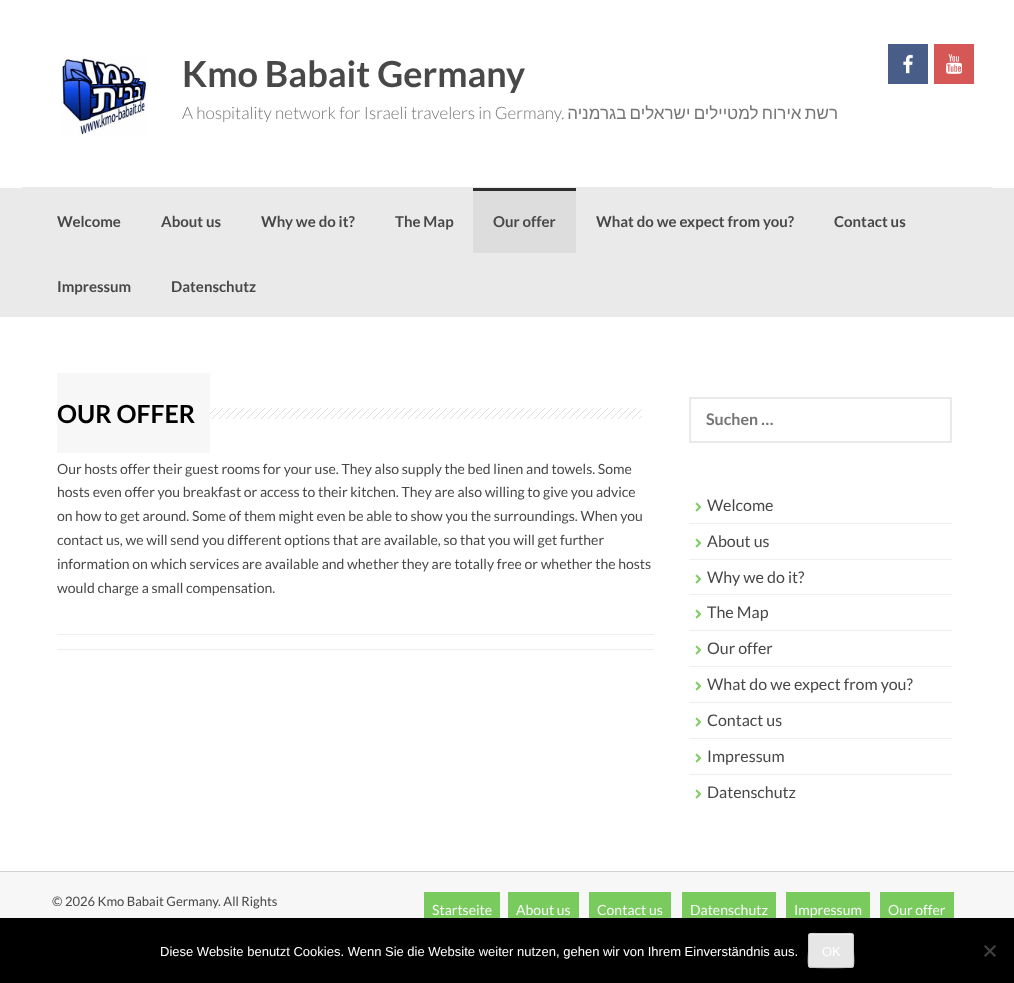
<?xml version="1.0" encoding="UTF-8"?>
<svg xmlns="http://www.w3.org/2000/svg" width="1014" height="983">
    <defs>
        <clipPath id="clip1"><rect x="37" y="0" width="802" height="187"/></clipPath>
    </defs>
    <rect width="100%" height="100%" fill="#FFFFFF"/>
    <rect x="22" y="187" width="970" height="1" fill="#EAEAEA"/>
    <image x="60" y="57" width="89" height="78" href="img_01.png"/>
    <text x="182" y="87" font-family="Lato" font-size="36" font-weight="700" fill="#484848">Kmo Babait Germany</text>
    <text x="182" y="119" font-family="Lato" font-size="17" font-weight="300" fill="#757575">A hospitality network for Israeli travelers in Germany.</text>
    <g clip-path="url(#clip1)">
        <text x="838" y="119" word-spacing="-1.5" font-family="Liberation Sans" font-size="17" direction="rtl" fill="#757575">רשת אירוח למטיילים ישראלים בגרמניה</text>
    </g>
    <image x="888" y="44" width="40" height="40" href="img_02.png"/>
    <image x="934" y="44" width="40" height="40" href="img_03.png"/>
    <rect x="0" y="188" width="1014" height="129" fill="#EAEAEA"/>
    <text x="57" y="227" font-family="Lato" font-size="15" font-weight="700" fill="#484848">Welcome</text>
    <text x="161" y="227" font-family="Lato" font-size="15" font-weight="700" fill="#484848">About us</text>
    <text x="261" y="227" font-family="Lato" font-size="15" font-weight="700" fill="#484848">Why we do it?</text>
    <text x="395" y="227" font-family="Lato" font-size="15" font-weight="700" fill="#484848">The Map</text>
    <rect x="473" y="191" width="103" height="62" fill="#DDDDDD"/>
    <rect x="473" y="188" width="103" height="3" fill="#2F2F2F"/>
    <text x="493" y="227" font-family="Lato" font-size="15" font-weight="700" fill="#484848">Our offer</text>
    <text x="596" y="227" font-family="Lato" font-size="15" font-weight="700" fill="#484848">What do we expect from you?</text>
    <text x="834" y="227" font-family="Lato" font-size="15" font-weight="700" fill="#484848">Contact us</text>
    <text x="57" y="292" font-family="Lato" font-size="15" font-weight="700" fill="#484848">Impressum</text>
    <text x="171" y="292" font-family="Lato" font-size="15" font-weight="700" fill="#484848">Datenschutz</text>
    <rect x="57" y="373" width="153" height="80" fill="#F7F7F7"/>
    <text x="57" y="423" font-family="Lato" font-size="25" font-weight="700" fill="#000000">OUR OFFER</text>
    <image x="210" y="408" width="432" height="11" href="img_04.png"/>
    <text font-family="Lato" font-size="14" fill="#484848">
        <tspan x="57" y="474">Our hosts offer their guest rooms for your use. They also supply the bed linen and towels. Some</tspan>
        <tspan x="57" y="497">hosts even offer you breakfast or access to their kitchen. They are also willing to give you advice</tspan>
        <tspan x="57" y="521">on how to get around. Some of them might even be able to show you the surroundings. When you</tspan>
        <tspan x="57" y="545">contact us, we will send you different options that are available, so that you will get further</tspan>
        <tspan x="57" y="569">information on which services are available and whether they are totally free or whether the hosts</tspan>
        <tspan x="57" y="593">would charge a small compensation.</tspan>
    </text>
    <rect x="57" y="634" width="597" height="1" fill="#EEEEEE"/>
    <rect x="57" y="649" width="597" height="1" fill="#EEEEEE"/>
    <rect x="690" y="398" width="261" height="44" fill="none" stroke="#EAEAEA" stroke-width="2"/>
    <text x="706" y="425" font-family="Lato" font-size="16" font-weight="700" fill="#757575">Suchen …</text>
    <rect x="689" y="523" width="263" height="1" fill="#EEEEEE"/>
    <image x="695" y="502" width="7" height="10" href="img_05.png"/>
    <text x="707" y="511" font-family="Lato" font-size="16" fill="#484848">Welcome</text>
    <rect x="689" y="559" width="263" height="1" fill="#EEEEEE"/>
    <image x="695" y="538" width="7" height="10" href="img_05.png"/>
    <text x="707" y="547" font-family="Lato" font-size="16" fill="#484848">About us</text>
    <rect x="689" y="594" width="263" height="1" fill="#EEEEEE"/>
    <image x="695" y="574" width="7" height="10" href="img_05.png"/>
    <text x="707" y="583" font-family="Lato" font-size="16" fill="#484848">Why we do it?</text>
    <rect x="689" y="630" width="263" height="1" fill="#EEEEEE"/>
    <image x="695" y="609" width="7" height="10" href="img_05.png"/>
    <text x="707" y="618" font-family="Lato" font-size="16" fill="#484848">The Map</text>
    <rect x="689" y="666" width="263" height="1" fill="#EEEEEE"/>
    <image x="695" y="645" width="7" height="10" href="img_05.png"/>
    <text x="707" y="654" font-family="Lato" font-size="16" fill="#484848">Our offer</text>
    <rect x="689" y="702" width="263" height="1" fill="#EEEEEE"/>
    <image x="695" y="681" width="7" height="10" href="img_05.png"/>
    <text x="707" y="690" font-family="Lato" font-size="16" fill="#484848">What do we expect from you?</text>
    <rect x="689" y="738" width="263" height="1" fill="#EEEEEE"/>
    <image x="695" y="717" width="7" height="10" href="img_05.png"/>
    <text x="707" y="726" font-family="Lato" font-size="16" fill="#484848">Contact us</text>
    <rect x="689" y="774" width="263" height="1" fill="#EEEEEE"/>
    <image x="695" y="753" width="7" height="10" href="img_05.png"/>
    <text x="707" y="762" font-family="Lato" font-size="16" fill="#484848">Impressum</text>
    <image x="695" y="789" width="7" height="10" href="img_05.png"/>
    <text x="707" y="798" font-family="Lato" font-size="16" fill="#484848">Datenschutz</text>
    <rect x="0" y="872" width="1014" height="46" fill="#F7F7F7"/>
    <rect x="0" y="871" width="1014" height="1" fill="#D1D1D1"/>
    <text x="52" y="906" font-family="Lato" font-size="13" fill="#484848">© 2026 Kmo Babait Germany. All Rights</text>
    <rect x="424" y="892" width="76" height="26" fill="#79CB5E"/>
    <text x="432" y="915" font-family="Lato" font-size="14" fill="#F7F7F7">Startseite</text>
    <rect x="508" y="892" width="71" height="26" fill="#79CB5E"/>
    <text x="516" y="915" font-family="Lato" font-size="14" fill="#F7F7F7">About us</text>
    <rect x="589" y="892" width="82" height="26" fill="#79CB5E"/>
    <text x="597" y="915" font-family="Lato" font-size="14" fill="#F7F7F7">Contact us</text>
    <rect x="682" y="892" width="94" height="26" fill="#79CB5E"/>
    <text x="690" y="915" font-family="Lato" font-size="14" fill="#F7F7F7">Datenschutz</text>
    <rect x="786" y="892" width="84" height="26" fill="#79CB5E"/>
    <text x="794" y="915" font-family="Lato" font-size="14" fill="#F7F7F7">Impressum</text>
    <rect x="880" y="892" width="74" height="26" fill="#79CB5E"/>
    <text x="888" y="915" font-family="Lato" font-size="14" fill="#F7F7F7">Our offer</text>
    <rect x="0" y="918" width="1014" height="65" fill="#000000"/>
    <text x="160" y="956" font-family="Liberation Sans" font-size="13" fill="#FFFFFF">Diese Website benutzt Cookies. Wenn Sie die Website weiter nutzen, gehen wir von Ihrem Einverständnis aus.</text>
    <rect x="808" y="933" width="46" height="35" rx="3" fill="#E6E6E6"/>
    <path d="M 811 935 H 851 C 852 935 853 936 853 937 C 853 932 848 934 844 934 H 818 C 814 934 809 932 809 937 C 809 936 810 935 811 935 Z" fill="#F3F3F3"/>
    <path d="M 853 967 C 851.5 968 810.5 968 809 967" fill="none" stroke="#BBBBBB"/>
    <path d="M 809 967 C 807.5 965 808.5 953.5 808.5 950.5 V 941 C 808.5 932 808.5 933.5 817.5 933.5 H 844.5 C 853.5 933.5 853.5 932 853.5 941 V 950.5 C 853.5 953.5 854.5 965 853 967" fill="none" stroke="#CCCCCC"/>
    <text x="822" y="956" font-family="Liberation Sans" font-size="13" fill="#FFFFFF">OK</text>
    <path d="M 994.5 945 L 996 946.5 L 985.5 957 L 984 955.5 Z" fill="#404040"/>
    <path d="M 984 946.5 L 985.5 945 L 996 955.5 L 994.5 957 Z" fill="#404040"/>
</svg>
